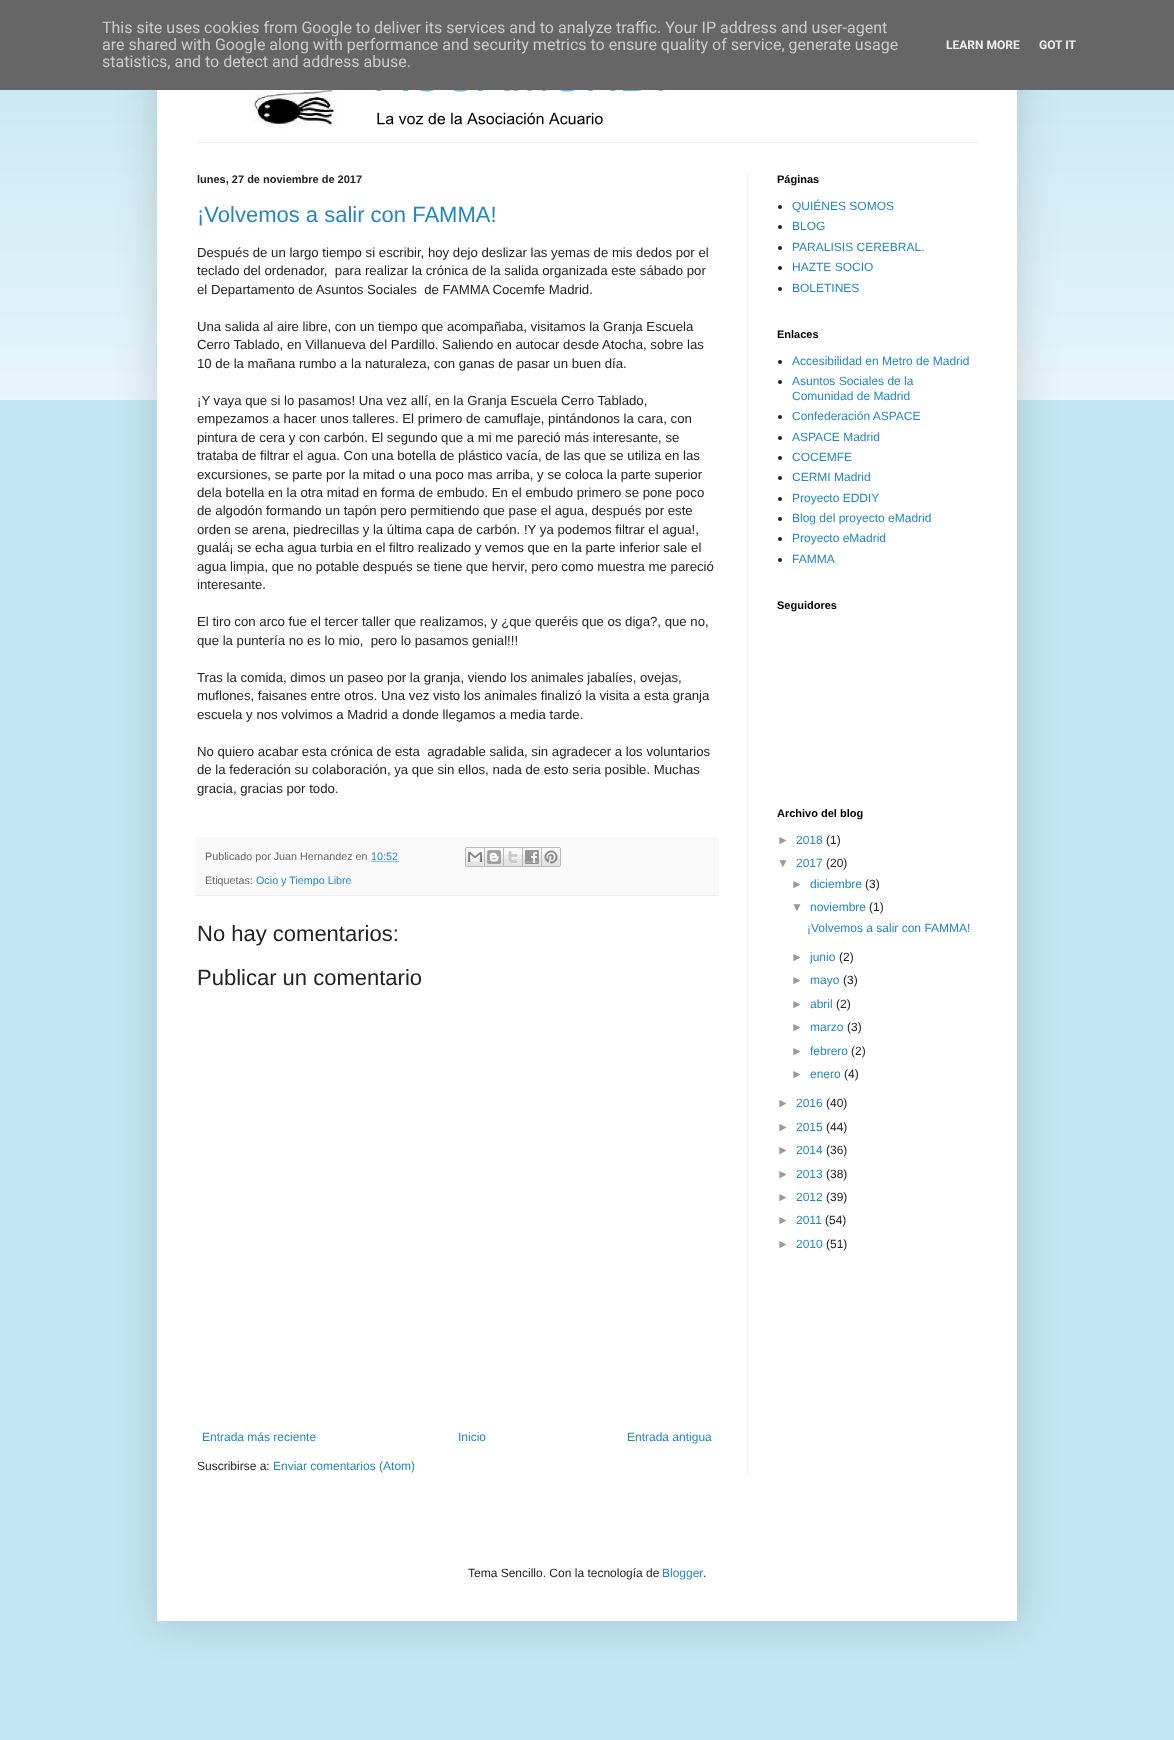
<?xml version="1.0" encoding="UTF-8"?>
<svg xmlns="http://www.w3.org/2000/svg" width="1174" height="1740">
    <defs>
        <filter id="blur1" x="-50%" y="-200%" width="200%" height="500%"><feGaussianBlur stdDeviation="20"/></filter>
    </defs>
    <rect width="100%" height="100%" fill="#C1E5F2"/>
    <image x="0" y="90" width="1174" height="310" href="img_01.png"/>
    <rect x="157" y="30" width="860" height="1591" fill="#000000" fill-opacity="0.15" filter="url(#blur1)"/>
    <rect x="0" y="0" width="1174" height="90" fill="#666666"/>
    <text font-family="Roboto" font-size="16" fill="#CCCCCC">
        <tspan x="102" y="33">This site uses cookies from Google to deliver its services and to analyze traffic. Your IP address and user-agent</tspan>
        <tspan x="102" y="50">are shared with Google along with performance and security metrics to ensure quality of service, generate usage</tspan>
        <tspan x="102" y="67">statistics, and to detect and address abuse.</tspan>
    </text>
    <text x="946" y="49" font-family="Roboto" font-size="12" font-weight="700" fill="#EEEEEE">LEARN MORE</text>
    <text x="1039" y="49" font-family="Roboto" font-size="12" font-weight="700" fill="#EEEEEE">GOT IT</text>
    <rect x="157" y="90" width="860" height="1531" fill="#FFFFFF"/>
    <image x="252" y="90" width="411" height="39" href="img_02.png"/>
    <rect x="197" y="142" width="780" height="1" fill="#EEEEEE"/>
    <rect x="747" y="173" width="1" height="1302" fill="#EEEEEE"/>
    <text x="197" y="183" font-family="Liberation Sans" font-size="11" font-weight="700" fill="#222222">lunes, 27 de noviembre de 2017</text>
    <text x="197" y="222" font-family="Liberation Sans" font-size="22" fill="#2288BB">¡Volvemos a salir con FAMMA!</text>
    <text font-family="Liberation Sans" font-size="13.2" fill="#222222" xml:space="preserve"><tspan x="197" y="257">Después de un largo tiempo si escribir, hoy dejo deslizar las yemas de mis dedos por el</tspan><tspan x="197" y="275">teclado del ordenador,  para realizar la crónica de la salida organizada este sábado por</tspan><tspan x="197" y="294">el Departamento de Asuntos Sociales  de FAMMA Cocemfe Madrid.</tspan></text>
    <text font-family="Liberation Sans" font-size="13.2" fill="#222222">
        <tspan x="197" y="331">Una salida al aire libre, con un tiempo que acompañaba, visitamos la Granja Escuela</tspan>
        <tspan x="197" y="349">Cerro Tablado, en Villanueva del Pardillo. Saliendo en autocar desde Atocha, sobre las</tspan>
        <tspan x="197" y="368">10 de la mañana rumbo a la naturaleza, con ganas de pasar un buen día.</tspan>
    </text>
    <text font-family="Liberation Sans" font-size="13.2" fill="#222222">
        <tspan x="197" y="405">¡Y vaya que si lo pasamos! Una vez allí, en la Granja Escuela Cerro Tablado,</tspan>
        <tspan x="197" y="423">empezamos a hacer unos talleres. El primero de camuflaje, pintándonos la cara, con</tspan>
        <tspan x="197" y="442">pintura de cera y con carbón. El segundo que a mi me pareció más interesante, se</tspan>
        <tspan x="197" y="460">trataba de filtrar el agua. Con una botella de plástico vacía, de las que se utiliza en las</tspan>
        <tspan x="197" y="479">excursiones, se parte por la mitad o una poco mas arriba, y se coloca la parte superior</tspan>
        <tspan x="197" y="497">dela botella en la otra mitad en forma de embudo. En el embudo primero se pone poco</tspan>
        <tspan x="197" y="515">de algodón formando un tapón pero permitiendo que pase el agua, después por este</tspan>
        <tspan x="197" y="534">orden se arena, piedrecillas y la última capa de carbón. !Y ya podemos filtrar el agua!,</tspan>
        <tspan x="197" y="552">gualá¡ se echa agua turbia en el filtro realizado y vemos que en la parte inferior sale el</tspan>
        <tspan x="197" y="571">agua limpia, que no potable después se tiene que hervir, pero como muestra me pareció</tspan>
        <tspan x="197" y="589">interesante.</tspan>
    </text>
    <text font-family="Liberation Sans" font-size="13.2" fill="#222222" xml:space="preserve"><tspan x="197" y="626">El tiro con arco fue el tercer taller que realizamos, y ¿que queréis que os diga?, que no,</tspan><tspan x="197" y="645">que la puntería no es lo mio,  pero lo pasamos genial!!!</tspan></text>
    <text font-family="Liberation Sans" font-size="13.2" fill="#222222">
        <tspan x="197" y="682">Tras la comida, dimos un paseo por la granja, viendo los animales jabalíes, ovejas,</tspan>
        <tspan x="197" y="700">muflones, faisanes entre otros. Una vez visto los animales finalizó la visita a esta granja</tspan>
        <tspan x="197" y="719">escuela y nos volvimos a Madrid a donde llegamos a media tarde.</tspan>
    </text>
    <text font-family="Liberation Sans" font-size="13.2" fill="#222222" xml:space="preserve"><tspan x="197" y="756">No quiero acabar esta crónica de esta  agradable salida, sin agradecer a los voluntarios</tspan><tspan x="197" y="774">de la federación su colaboración, ya que sin ellos, nada de esto seria posible. Muchas</tspan><tspan x="197" y="793">gracia, gracias por todo.</tspan></text>
    <rect x="195" y="837" width="524" height="58" fill="#F9F9F9"/>
    <rect x="195" y="895" width="524" height="1" fill="#EEEEEE"/>
    <text x="205" y="860" font-family="Liberation Sans" font-size="10.75" fill="#666666">Publicado por Juan Hernandez en</text>
    <text x="371" y="860" font-family="Liberation Sans" font-size="10.75" fill="#2288BB">10:52</text>
    <path d="M 371.5 861.5 H 398.5" fill="none" stroke="#2288BB" stroke-dasharray="1 1"/>
    <image x="465" y="847" width="20" height="20" href="img_03.png"/>
    <image x="485" y="847" width="19" height="20" href="img_04.png"/>
    <image x="504" y="847" width="19" height="20" href="img_05.png"/>
    <image x="523" y="847" width="19" height="20" href="img_06.png"/>
    <image x="542" y="847" width="19" height="20" href="img_07.png"/>
    <text x="205" y="884" font-family="Liberation Sans" font-size="10.75" fill="#666666">Etiquetas:</text>
    <text x="256" y="884" font-family="Liberation Sans" font-size="10.75" fill="#2288BB">Ocio y Tiempo Libre</text>
    <text x="197" y="941" font-family="Liberation Sans" font-size="22" fill="#222222">No hay comentarios:</text>
    <text x="197" y="985" font-family="Liberation Sans" font-size="22" fill="#222222">Publicar un comentario</text>
    <text x="202" y="1441" font-family="Liberation Sans" font-size="12" fill="#2288BB">Entrada más reciente</text>
    <text x="458" y="1441" font-family="Liberation Sans" font-size="12" fill="#2288BB">Inicio</text>
    <text x="627" y="1441" font-family="Liberation Sans" font-size="12" fill="#2288BB">Entrada antigua</text>
    <text x="197" y="1470" font-family="Liberation Sans" font-size="12" fill="#222222">Suscribirse a:</text>
    <text x="273" y="1470" font-family="Liberation Sans" font-size="12" fill="#2288BB">Enviar comentarios (Atom)</text>
    <text x="777" y="183" font-family="Liberation Sans" font-size="11" font-weight="700" fill="#000000">Páginas</text>
    <circle cx="780" cy="207" r="2" fill="#222222"/>
    <text x="792" y="210" font-family="Liberation Sans" font-size="12" fill="#2288BB">QUIÉNES SOMOS</text>
    <circle cx="780" cy="227" r="2" fill="#222222"/>
    <text x="792" y="230" font-family="Liberation Sans" font-size="12" fill="#2288BB">BLOG</text>
    <circle cx="780" cy="248" r="2" fill="#222222"/>
    <text x="792" y="251" font-family="Liberation Sans" font-size="12" fill="#2288BB">PARALISIS CEREBRAL.</text>
    <circle cx="780" cy="268" r="2" fill="#222222"/>
    <text x="792" y="271" font-family="Liberation Sans" font-size="12" fill="#2288BB">HAZTE SOCIO</text>
    <circle cx="780" cy="289" r="2" fill="#222222"/>
    <text x="792" y="292" font-family="Liberation Sans" font-size="12" fill="#2288BB">BOLETINES</text>
    <text x="777" y="338" font-family="Liberation Sans" font-size="11" font-weight="700" fill="#000000">Enlaces</text>
    <circle cx="780" cy="362" r="2" fill="#222222"/>
    <text x="792" y="365" font-family="Liberation Sans" font-size="12" fill="#2288BB">Accesibilidad en Metro de Madrid</text>
    <circle cx="780" cy="382" r="2" fill="#222222"/>
    <text font-family="Liberation Sans" font-size="12" fill="#2288BB">
        <tspan x="792" y="385">Asuntos Sociales de la</tspan>
        <tspan x="792" y="400">Comunidad de Madrid</tspan>
    </text>
    <circle cx="780" cy="417" r="2" fill="#222222"/>
    <text x="792" y="420" font-family="Liberation Sans" font-size="12" fill="#2288BB">Confederación ASPACE</text>
    <circle cx="780" cy="438" r="2" fill="#222222"/>
    <text x="792" y="441" font-family="Liberation Sans" font-size="12" fill="#2288BB">ASPACE Madrid</text>
    <circle cx="780" cy="458" r="2" fill="#222222"/>
    <text x="792" y="461" font-family="Liberation Sans" font-size="12" fill="#2288BB">COCEMFE</text>
    <circle cx="780" cy="478" r="2" fill="#222222"/>
    <text x="792" y="481" font-family="Liberation Sans" font-size="12" fill="#2288BB">CERMI Madrid</text>
    <circle cx="780" cy="499" r="2" fill="#222222"/>
    <text x="792" y="502" font-family="Liberation Sans" font-size="12" fill="#2288BB">Proyecto EDDIY</text>
    <circle cx="780" cy="519" r="2" fill="#222222"/>
    <text x="792" y="522" font-family="Liberation Sans" font-size="12" fill="#2288BB">Blog del proyecto eMadrid</text>
    <circle cx="780" cy="539" r="2" fill="#222222"/>
    <text x="792" y="542" font-family="Liberation Sans" font-size="12" fill="#2288BB">Proyecto eMadrid</text>
    <circle cx="780" cy="560" r="2" fill="#222222"/>
    <text x="792" y="563" font-family="Liberation Sans" font-size="12" fill="#2288BB">FAMMA</text>
    <text x="777" y="609" font-family="Liberation Sans" font-size="11" font-weight="700" fill="#000000">Seguidores</text>
    <text x="777" y="817" font-family="Liberation Sans" font-size="11" font-weight="700" fill="#000000">Archivo del blog</text>
    <text x="777" y="844" font-family="Liberation Sans" font-size="12" fill="#999999">►</text>
    <text x="796" y="844" font-family="Liberation Sans" font-size="12" fill="#2288BB">2018</text>
    <text x="826" y="844" font-family="Liberation Sans" font-size="12" fill="#222222">(1)</text>
    <text x="777" y="867" font-family="Liberation Sans" font-size="12" fill="#999999">▼</text>
    <text x="796" y="867" font-family="Liberation Sans" font-size="12" fill="#2288BB">2017</text>
    <text x="826" y="867" font-family="Liberation Sans" font-size="12" fill="#222222">(20)</text>
    <text x="791" y="888" font-family="Liberation Sans" font-size="12" fill="#999999">►</text>
    <text x="810" y="888" font-family="Liberation Sans" font-size="12" fill="#2288BB">diciembre</text>
    <text x="865" y="888" font-family="Liberation Sans" font-size="12" fill="#222222">(3)</text>
    <text x="791" y="911" font-family="Liberation Sans" font-size="12" fill="#999999">▼</text>
    <text x="810" y="911" font-family="Liberation Sans" font-size="12" fill="#2288BB">noviembre</text>
    <text x="869" y="911" font-family="Liberation Sans" font-size="12" fill="#222222">(1)</text>
    <text x="807" y="932" font-family="Liberation Sans" font-size="12" fill="#2288BB">¡Volvemos a salir con FAMMA!</text>
    <text x="791" y="961" font-family="Liberation Sans" font-size="12" fill="#999999">►</text>
    <text x="810" y="961" font-family="Liberation Sans" font-size="12" fill="#2288BB">junio</text>
    <text x="839" y="961" font-family="Liberation Sans" font-size="12" fill="#222222">(2)</text>
    <text x="791" y="984" font-family="Liberation Sans" font-size="12" fill="#999999">►</text>
    <text x="810" y="984" font-family="Liberation Sans" font-size="12" fill="#2288BB">mayo</text>
    <text x="843" y="984" font-family="Liberation Sans" font-size="12" fill="#222222">(3)</text>
    <text x="791" y="1008" font-family="Liberation Sans" font-size="12" fill="#999999">►</text>
    <text x="810" y="1008" font-family="Liberation Sans" font-size="12" fill="#2288BB">abril</text>
    <text x="836" y="1008" font-family="Liberation Sans" font-size="12" fill="#222222">(2)</text>
    <text x="791" y="1031" font-family="Liberation Sans" font-size="12" fill="#999999">►</text>
    <text x="810" y="1031" font-family="Liberation Sans" font-size="12" fill="#2288BB">marzo</text>
    <text x="847" y="1031" font-family="Liberation Sans" font-size="12" fill="#222222">(3)</text>
    <text x="791" y="1055" font-family="Liberation Sans" font-size="12" fill="#999999">►</text>
    <text x="810" y="1055" font-family="Liberation Sans" font-size="12" fill="#2288BB">febrero</text>
    <text x="851" y="1055" font-family="Liberation Sans" font-size="12" fill="#222222">(2)</text>
    <text x="791" y="1078" font-family="Liberation Sans" font-size="12" fill="#999999">►</text>
    <text x="810" y="1078" font-family="Liberation Sans" font-size="12" fill="#2288BB">enero</text>
    <text x="844" y="1078" font-family="Liberation Sans" font-size="12" fill="#222222">(4)</text>
    <text x="777" y="1107" font-family="Liberation Sans" font-size="12" fill="#999999">►</text>
    <text x="796" y="1107" font-family="Liberation Sans" font-size="12" fill="#2288BB">2016</text>
    <text x="826" y="1107" font-family="Liberation Sans" font-size="12" fill="#222222">(40)</text>
    <text x="777" y="1131" font-family="Liberation Sans" font-size="12" fill="#999999">►</text>
    <text x="796" y="1131" font-family="Liberation Sans" font-size="12" fill="#2288BB">2015</text>
    <text x="826" y="1131" font-family="Liberation Sans" font-size="12" fill="#222222">(44)</text>
    <text x="777" y="1154" font-family="Liberation Sans" font-size="12" fill="#999999">►</text>
    <text x="796" y="1154" font-family="Liberation Sans" font-size="12" fill="#2288BB">2014</text>
    <text x="826" y="1154" font-family="Liberation Sans" font-size="12" fill="#222222">(36)</text>
    <text x="777" y="1178" font-family="Liberation Sans" font-size="12" fill="#999999">►</text>
    <text x="796" y="1178" font-family="Liberation Sans" font-size="12" fill="#2288BB">2013</text>
    <text x="826" y="1178" font-family="Liberation Sans" font-size="12" fill="#222222">(38)</text>
    <text x="777" y="1201" font-family="Liberation Sans" font-size="12" fill="#999999">►</text>
    <text x="796" y="1201" font-family="Liberation Sans" font-size="12" fill="#2288BB">2012</text>
    <text x="826" y="1201" font-family="Liberation Sans" font-size="12" fill="#222222">(39)</text>
    <text x="777" y="1224" font-family="Liberation Sans" font-size="12" fill="#999999">►</text>
    <text x="796" y="1224" font-family="Liberation Sans" font-size="12" fill="#2288BB">2011</text>
    <text x="825" y="1224" font-family="Liberation Sans" font-size="12" fill="#222222">(54)</text>
    <text x="777" y="1248" font-family="Liberation Sans" font-size="12" fill="#999999">►</text>
    <text x="796" y="1248" font-family="Liberation Sans" font-size="12" fill="#2288BB">2010</text>
    <text x="826" y="1248" font-family="Liberation Sans" font-size="12" fill="#222222">(51)</text>
    <text x="468" y="1577" font-family="Liberation Sans" font-size="12" fill="#222222">Tema Sencillo. Con la tecnología de</text>
    <text x="662" y="1577" font-family="Liberation Sans" font-size="12" fill="#2288BB">Blogger</text>
    <text x="703" y="1577" font-family="Liberation Sans" font-size="12" fill="#222222">.</text>
</svg>
